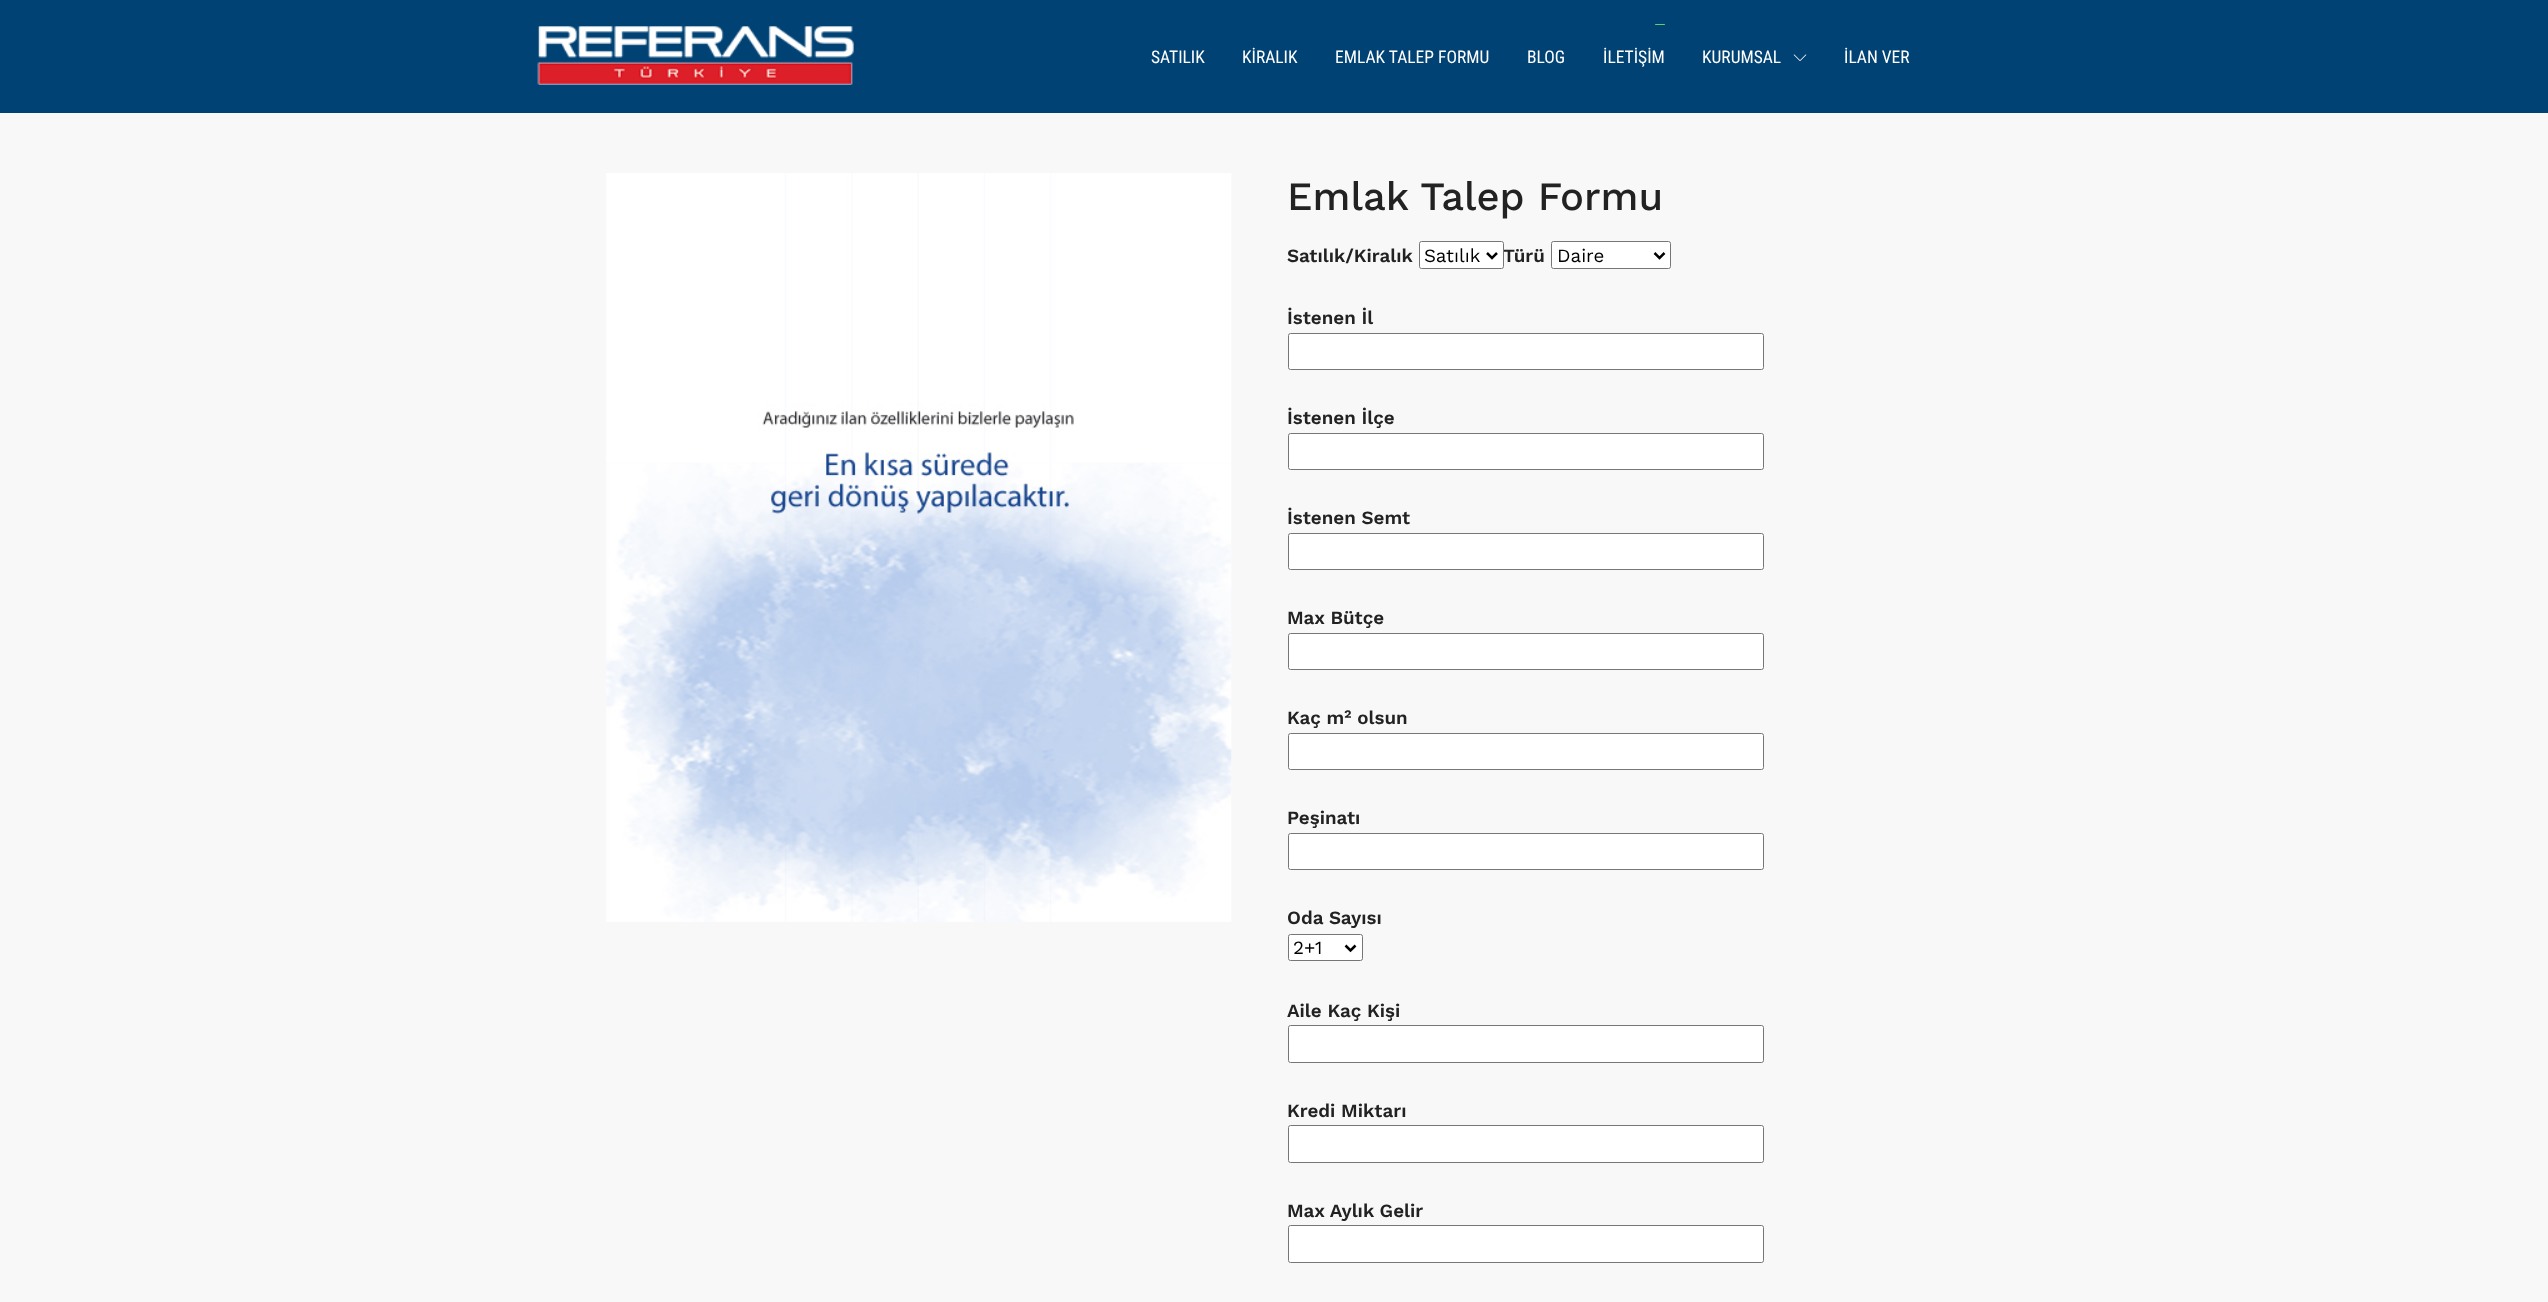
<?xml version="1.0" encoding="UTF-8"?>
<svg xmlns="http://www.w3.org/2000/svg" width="2548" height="1302">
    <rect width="100%" height="100%" fill="#F8F8F8"/>
    <rect x="0" y="0" width="2548" height="113" fill="#004274"/>
    <image x="537" y="26" width="317" height="59" href="img_01.png"/>
    <text x="1151" y="63" font-family="Roboto Condensed" font-size="17.5" fill="#FFFFFF">SATILIK</text>
    <text x="1242" y="63" font-family="Roboto Condensed" font-size="17.5" fill="#FFFFFF">KİRALIK</text>
    <text x="1335" y="63" font-family="Roboto Condensed" font-size="17.5" fill="#FFFFFF">EMLAK TALEP FORMU</text>
    <text x="1527" y="63" font-family="Roboto Condensed" font-size="17.5" fill="#FFFFFF">BLOG</text>
    <rect x="1655" y="24" width="10" height="1" rx="0.5" fill="#61CE70"/>
    <text x="1603" y="63" font-family="Roboto Condensed" font-size="17.5" fill="#FFFFFF">İLETİŞİM</text>
    <text x="1702" y="63" font-family="Roboto Condensed" font-size="17.5" fill="#FFFFFF">KURUMSAL</text>
    <image x="1793" y="54" width="14" height="7" href="img_02.png"/>
    <text x="1844" y="63" font-family="Roboto Condensed" font-size="17.5" fill="#FFFFFF">İLAN VER</text>
    <image x="606" y="173" width="626" height="749" href="img_03.png"/>
    <text x="1287" y="210" font-family="Work Sans" font-size="40" font-weight="500" fill="#222222">Emlak Talep Formu</text>
    <text x="1287" y="262" font-family="Work Sans" font-size="18.75" font-weight="600" fill="#222222">Satılık/Kiralık</text>
    <text x="1503" y="262" font-family="Work Sans" font-size="18.75" font-weight="600" fill="#222222">Türü</text>
    <rect x="1419.5" y="241.5" width="84" height="27" rx="2" fill="#FFFFFF" stroke="#767676"/>
    <path d="M 1487 253 L 1492 258 L 1497 253" fill="none" stroke="#000000" stroke-width="2.5"/>
    <text x="1424" y="262" font-family="Work Sans" font-size="18.75" fill="#000000">Satılık</text>
    <rect x="1551.5" y="241.5" width="119" height="27" rx="2" fill="#FFFFFF" stroke="#767676"/>
    <path d="M 1654.5 253 L 1659.5 258 L 1664.5 253" fill="none" stroke="#000000" stroke-width="2.5"/>
    <text x="1557" y="262" font-family="Work Sans" font-size="18.75" fill="#000000">Daire</text>
    <text x="1287" y="324" font-family="Work Sans" font-size="18.75" font-weight="600" fill="#222222">İstenen İl</text>
    <rect x="1288.5" y="333.5" width="475" height="36" rx="2" fill="#FFFFFF" stroke="#767676"/>
    <text x="1287" y="424" font-family="Work Sans" font-size="18.75" font-weight="600" fill="#222222">İstenen İlçe</text>
    <rect x="1288.5" y="433.5" width="475" height="36" rx="2" fill="#FFFFFF" stroke="#767676"/>
    <text x="1287" y="524" font-family="Work Sans" font-size="18.75" font-weight="600" fill="#222222">İstenen Semt</text>
    <rect x="1288.5" y="533.5" width="475" height="36" rx="2" fill="#FFFFFF" stroke="#767676"/>
    <text x="1287" y="624" font-family="Work Sans" font-size="18.75" font-weight="600" fill="#222222">Max Bütçe</text>
    <rect x="1288.5" y="633.5" width="475" height="36" rx="2" fill="#FFFFFF" stroke="#767676"/>
    <text x="1287" y="724" font-family="Work Sans" font-size="18.75" font-weight="600" fill="#222222">Kaç m² olsun</text>
    <rect x="1288.5" y="733.5" width="475" height="36" rx="2" fill="#FFFFFF" stroke="#767676"/>
    <text x="1287" y="824" font-family="Work Sans" font-size="18.75" font-weight="600" fill="#222222">Peşinatı</text>
    <rect x="1288.5" y="833.5" width="475" height="36" rx="2" fill="#FFFFFF" stroke="#767676"/>
    <text x="1287" y="924" font-family="Work Sans" font-size="18.75" font-weight="600" fill="#222222">Oda Sayısı</text>
    <rect x="1288.5" y="934.5" width="74" height="26" rx="2" fill="#FFFFFF" stroke="#767676"/>
    <path d="M 1345.5 945.5 L 1350.5 950.5 L 1355.5 945.5" fill="none" stroke="#000000" stroke-width="2.5"/>
    <text x="1293" y="954" font-family="Work Sans" font-size="18.75" fill="#000000">2+1</text>
    <text x="1287" y="1017" font-family="Work Sans" font-size="18.75" font-weight="600" fill="#222222">Aile Kaç Kişi</text>
    <rect x="1288.5" y="1025.5" width="475" height="37" rx="2" fill="#FFFFFF" stroke="#767676"/>
    <text x="1287" y="1117" font-family="Work Sans" font-size="18.75" font-weight="600" fill="#222222">Kredi Miktarı</text>
    <rect x="1288.5" y="1125.5" width="475" height="37" rx="2" fill="#FFFFFF" stroke="#767676"/>
    <text x="1287" y="1217" font-family="Work Sans" font-size="18.75" font-weight="600" fill="#222222">Max Aylık Gelir</text>
    <rect x="1288.5" y="1225.5" width="475" height="37" rx="2" fill="#FFFFFF" stroke="#767676"/>
</svg>
